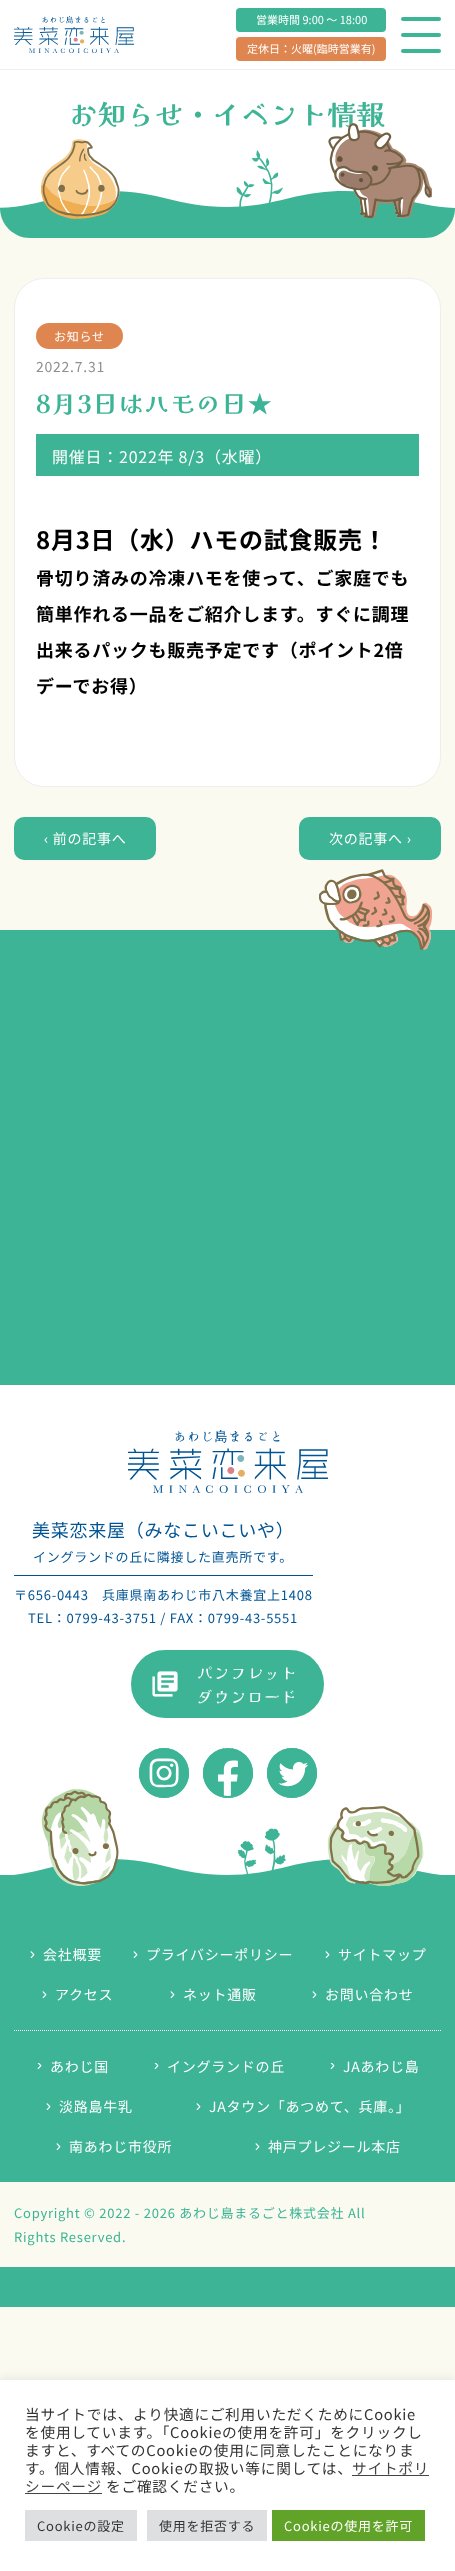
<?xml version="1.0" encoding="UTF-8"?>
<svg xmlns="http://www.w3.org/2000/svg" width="455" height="2571">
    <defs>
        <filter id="blur1" x="-50%" y="-200%" width="200%" height="500%"><feGaussianBlur stdDeviation="5"/></filter>
    </defs>
    <rect width="100%" height="100%" fill="#FAFAF0"/>
    <rect x="0" y="0" width="455" height="69" fill="#FFFFFF"/>
    <rect x="0" y="69" width="455" height="1" fill="#EEEEEE"/>
    <image x="14" y="16" width="120" height="37" href="img_01.png"/>
    <rect x="236" y="8" width="150" height="24" rx="4" fill="#3CB495"/>
    <text x="256" y="24" font-family="Noto Sans JP" font-size="11" fill="#FFFFFF">営業時間 9:00 ～ 18:00</text>
    <rect x="236" y="37" width="150" height="24" rx="4" fill="#DF854F"/>
    <text x="247" y="53" font-family="Noto Sans JP" font-size="11" fill="#FFFFFF">定休日：火曜(臨時営業有)</text>
    <rect x="401" y="33" width="40" height="4" rx="2" fill="#3CB495"/>
    <rect x="401" y="17" width="40" height="4" rx="2" fill="#3CB495"/>
    <rect x="401" y="49" width="40" height="4" rx="2" fill="#3CB495"/>
    <rect x="0" y="70" width="455" height="138" fill="#FFFFFF"/>
    <text x="69" y="125" font-family="Kaisei Decol" font-size="28" font-weight="700" letter-spacing="0.75" fill="#3CB495">お知らせ・イベント情報</text>
    <path d="M 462 208 C 412 208 395 191 345 191 C 294 191 277 207 227 207 C 177 207 160 191 110 191 C 59 191 42 208 -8 208 Z" fill="#3CB495"/>
    <path d="M 0 208 H 455 C 455 224.5 441.5 238 425 238 H 30 C 13.5 238 0 224.5 0 208 Z" fill="#3CB495"/>
    <image x="41" y="139" width="79" height="80" href="img_02.png"/>
    <image x="236" y="150" width="47" height="57" href="img_03.png"/>
    <image x="328" y="123" width="104" height="96" href="img_04.png"/>
    <rect x="14.5" y="278.5" width="426" height="508" rx="29.5" fill="#FFFFFF" stroke="#EEEEEE"/>
    <rect x="36" y="323" width="87" height="26" rx="13" fill="#DF854F"/>
    <text x="54" y="341" font-family="Noto Sans JP" font-size="12" letter-spacing="0.75" fill="#FFFFFF">お知らせ</text>
    <text x="36" y="372" font-family="Noto Sans JP" font-size="14" letter-spacing="0.75" fill="#8F8F8F">2022.7.31</text>
    <rect x="36" y="434" width="383" height="42" fill="#3CB495"/>
    <text x="36" y="413" font-family="Kaisei Decol" font-size="25" font-weight="700" letter-spacing="0.75" fill="#3CB495">8月3日はハモの日★</text>
    <text x="52" y="463" font-family="Noto Sans JP" font-size="16" letter-spacing="0.75" fill="#FFFFFF">開催日：2022年 8/3（水曜）</text>
    <text x="36" y="549" font-family="Noto Sans JP" font-size="24" font-weight="700" letter-spacing="0.75" fill="#000000">8月3日（水）ハモの試食販売！</text>
    <text x="36" y="585" font-family="Noto Sans JP" font-size="18" font-weight="700" letter-spacing="0.75" fill="#000000">骨切り済みの冷凍ハモを使って、ご家庭でも</text>
    <text x="36" y="621" font-family="Noto Sans JP" font-size="18" font-weight="700" letter-spacing="0.75" fill="#000000">簡単作れる一品をご紹介します。すぐに調理</text>
    <text x="36" y="657" font-family="Noto Sans JP" font-size="18" font-weight="700" letter-spacing="0.75" fill="#000000">出来るパックも販売予定です（ポイント2倍</text>
    <text x="36" y="693" font-family="Noto Sans JP" font-size="18" font-weight="700" letter-spacing="0.75" fill="#000000">デーでお得）</text>
    <rect x="15" y="818" width="140" height="41" rx="9" fill="#3CB495" stroke="#3CB495" stroke-width="2"/>
    <text x="44" y="844" font-family="Noto Sans JP" font-size="14" letter-spacing="0.75" fill="#FFFFFF">‹ 前の記事へ</text>
    <rect x="300" y="818" width="140" height="41" rx="9" fill="#3CB495" stroke="#3CB495" stroke-width="2"/>
    <text x="329" y="844" font-family="Noto Sans JP" font-size="14" letter-spacing="0.75" fill="#FFFFFF">次の記事へ ›</text>
    <rect x="0" y="930" width="455" height="1377" fill="#3CB495"/>
    <image x="319" y="869" width="113" height="81" href="img_05.png"/>
    <rect x="0" y="1385" width="455" height="490" fill="#FFFFFF"/>
    <image x="128" y="1430" width="200" height="63" href="img_06.png"/>
    <text x="32" y="1537" font-family="Noto Sans JP" font-size="18" letter-spacing="0.75" fill="#005493">美菜恋来屋（みなこいこいや）</text>
    <rect x="14" y="1575" width="299" height="1" fill="#005493"/>
    <text x="33" y="1562" font-family="Noto Sans JP" font-size="13" letter-spacing="0.75" fill="#005493">イングランドの丘に隣接した直売所です。</text>
    <text x="14" y="1600" font-family="Noto Sans JP" font-size="13" letter-spacing="0.75" fill="#005493">〒656-0443</text>
    <text x="102" y="1600" font-family="Noto Sans JP" font-size="13" letter-spacing="0.75" fill="#005493">兵庫県南あわじ市八木養宜上1408</text>
    <text x="28" y="1623" font-family="Noto Sans JP" font-size="13" letter-spacing="0.75" fill="#005493">TEL：0799-43-3751 / FAX：0799-43-5551</text>
    <rect x="132" y="1651" width="191" height="66" rx="33" fill="#3CB495" stroke="#3CB495" stroke-width="2"/>
    <image x="152" y="1671" width="26" height="26" href="img_07.png"/>
    <text font-family="Kaisei Decol" font-size="16" letter-spacing="0.75" fill="#FFFFFF">
        <tspan x="197" y="1679">パンフレット</tspan>
        <tspan x="197" y="1703">ダウンロード</tspan>
    </text>
    <circle cx="164" cy="1773" r="25" fill="#3CB495"/>
    <image x="149" y="1758" width="30" height="30" href="img_08.png"/>
    <circle cx="164" cy="1773" r="24" fill="none" stroke="#3CB495" stroke-width="2"/>
    <circle cx="228" cy="1773" r="25" fill="#3CB495"/>
    <image x="218" y="1748" width="20" height="48" href="img_09.png"/>
    <circle cx="228" cy="1773" r="24" fill="none" stroke="#3CB495" stroke-width="2"/>
    <circle cx="292" cy="1773" r="25" fill="#3CB495"/>
    <image x="278" y="1762" width="31" height="25" href="img_10.png"/>
    <circle cx="292" cy="1773" r="24" fill="none" stroke="#3CB495" stroke-width="2"/>
    <path d="M 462 1876 C 412 1876 395 1859 345 1859 C 294 1859 277 1875 227 1875 C 177 1875 160 1859 110 1859 C 59 1859 42 1876 -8 1876 Z" fill="#3CB495"/>
    <image x="41" y="1789" width="78" height="97" href="img_11.png"/>
    <image x="238" y="1828" width="48" height="46" href="img_12.png"/>
    <image x="327" y="1806" width="97" height="80" href="img_13.png"/>
    <path d="M 14 2030.5 H 441" fill="none" stroke="#FFFFFF" stroke-dasharray="1 1"/>
    <image x="30" y="1951" width="5" height="7" href="img_14.png"/>
    <text x="43" y="1960" font-family="Noto Sans JP" font-size="14" letter-spacing="0.75" fill="#FFFFFF">会社概要</text>
    <image x="133" y="1951" width="5" height="7" href="img_14.png"/>
    <text x="146" y="1960" font-family="Noto Sans JP" font-size="14" letter-spacing="0.75" fill="#FFFFFF">プライバシーポリシー</text>
    <image x="325" y="1951" width="5" height="7" href="img_14.png"/>
    <text x="338" y="1960" font-family="Noto Sans JP" font-size="14" letter-spacing="0.75" fill="#FFFFFF">サイトマップ</text>
    <image x="42" y="1991" width="5" height="7" href="img_14.png"/>
    <text x="55" y="2000" font-family="Noto Sans JP" font-size="14" letter-spacing="0.75" fill="#FFFFFF">アクセス</text>
    <image x="170" y="1991" width="5" height="7" href="img_14.png"/>
    <text x="183" y="2000" font-family="Noto Sans JP" font-size="14" letter-spacing="0.75" fill="#FFFFFF">ネット通販</text>
    <image x="312" y="1991" width="5" height="7" href="img_14.png"/>
    <text x="325" y="2000" font-family="Noto Sans JP" font-size="14" letter-spacing="0.75" fill="#FFFFFF">お問い合わせ</text>
    <image x="37" y="2063" width="5" height="6" href="img_15.png"/>
    <text x="50" y="2072" font-family="Noto Sans JP" font-size="14" letter-spacing="0.75" fill="#FFFFFF">あわじ国</text>
    <image x="154" y="2063" width="5" height="6" href="img_15.png"/>
    <text x="167" y="2072" font-family="Noto Sans JP" font-size="14" letter-spacing="0.75" fill="#FFFFFF">イングランドの丘</text>
    <image x="330" y="2063" width="5" height="6" href="img_15.png"/>
    <text x="343" y="2072" font-family="Noto Sans JP" font-size="14" letter-spacing="0.75" fill="#FFFFFF">JAあわじ島</text>
    <image x="46" y="2103" width="5" height="7" href="img_14.png"/>
    <text x="59" y="2112" font-family="Noto Sans JP" font-size="14" letter-spacing="0.75" fill="#FFFFFF">淡路島牛乳</text>
    <image x="196" y="2103" width="5" height="7" href="img_14.png"/>
    <text x="209" y="2112" font-family="Noto Sans JP" font-size="14" letter-spacing="0.75" fill="#FFFFFF">JAタウン「あつめて、兵庫。」</text>
    <image x="56" y="2143" width="5" height="7" href="img_14.png"/>
    <text x="69" y="2152" font-family="Noto Sans JP" font-size="14" letter-spacing="0.75" fill="#FFFFFF">南あわじ市役所</text>
    <image x="255" y="2143" width="5" height="7" href="img_14.png"/>
    <text x="268" y="2152" font-family="Noto Sans JP" font-size="14" letter-spacing="0.75" fill="#FFFFFF">神戸プレジール本店</text>
    <rect x="0" y="2182" width="455" height="85" fill="#FAFAF0"/>
    <text font-family="Noto Sans JP" font-size="13" letter-spacing="0.75" fill="#3CB495">
        <tspan x="14" y="2218">Copyright © 2022 - 2026 あわじ島まるごと株式会社 All</tspan>
        <tspan x="14" y="2242">Rights Reserved.</tspan>
    </text>
    <rect x="0" y="2379" width="455" height="191" fill="#ACABAB" fill-opacity="0.3" filter="url(#blur1)"/>
    <rect x="0" y="2380" width="455" height="191" fill="#FFFFFF"/>
    <text font-family="Noto Sans JP" font-size="14.7" letter-spacing="0.75" fill="#333333">
        <tspan x="25" y="2420">当サイトでは、より快適にご利用いただくためにCookie</tspan>
        <tspan x="25" y="2438">を使用しています。「Cookieの使用を許可」をクリックし</tspan>
        <tspan x="25" y="2456">ますと、すべてのCookieの使用に同意したことになりま</tspan>
        <tspan x="25" y="2474">す。個人情報、Cookieの取扱い等に関しては、</tspan>
    </text>
    <text x="352" y="2474" font-family="Noto Sans JP" font-size="14.7" letter-spacing="0.75" fill="#444444">サイトポリ</text>
    <rect x="352" y="2475" width="77" height="1" fill="#444444"/>
    <text x="25" y="2492" font-family="Noto Sans JP" font-size="14.7" letter-spacing="0.75" fill="#444444">シーページ</text>
    <rect x="25" y="2493" width="77" height="1" fill="#444444"/>
    <text x="106" y="2492" font-family="Noto Sans JP" font-size="14.7" letter-spacing="0.75" fill="#333333">をご確認ください。</text>
    <rect x="25" y="2510" width="112" height="31" fill="#DEDFE0"/>
    <text x="37" y="2531" font-family="Noto Sans JP" font-size="13" letter-spacing="0.75" fill="#333333">Cookieの設定</text>
    <rect x="147" y="2510" width="120" height="31" fill="#DEDFE0"/>
    <text x="159" y="2531" font-family="Noto Sans JP" font-size="13" letter-spacing="0.75" fill="#333333">使用を拒否する</text>
    <rect x="272" y="2510" width="153" height="31" fill="#61A229"/>
    <text x="284" y="2531" font-family="Noto Sans JP" font-size="13" letter-spacing="0.75" fill="#FFFFFF">Cookieの使用を許可</text>
</svg>
